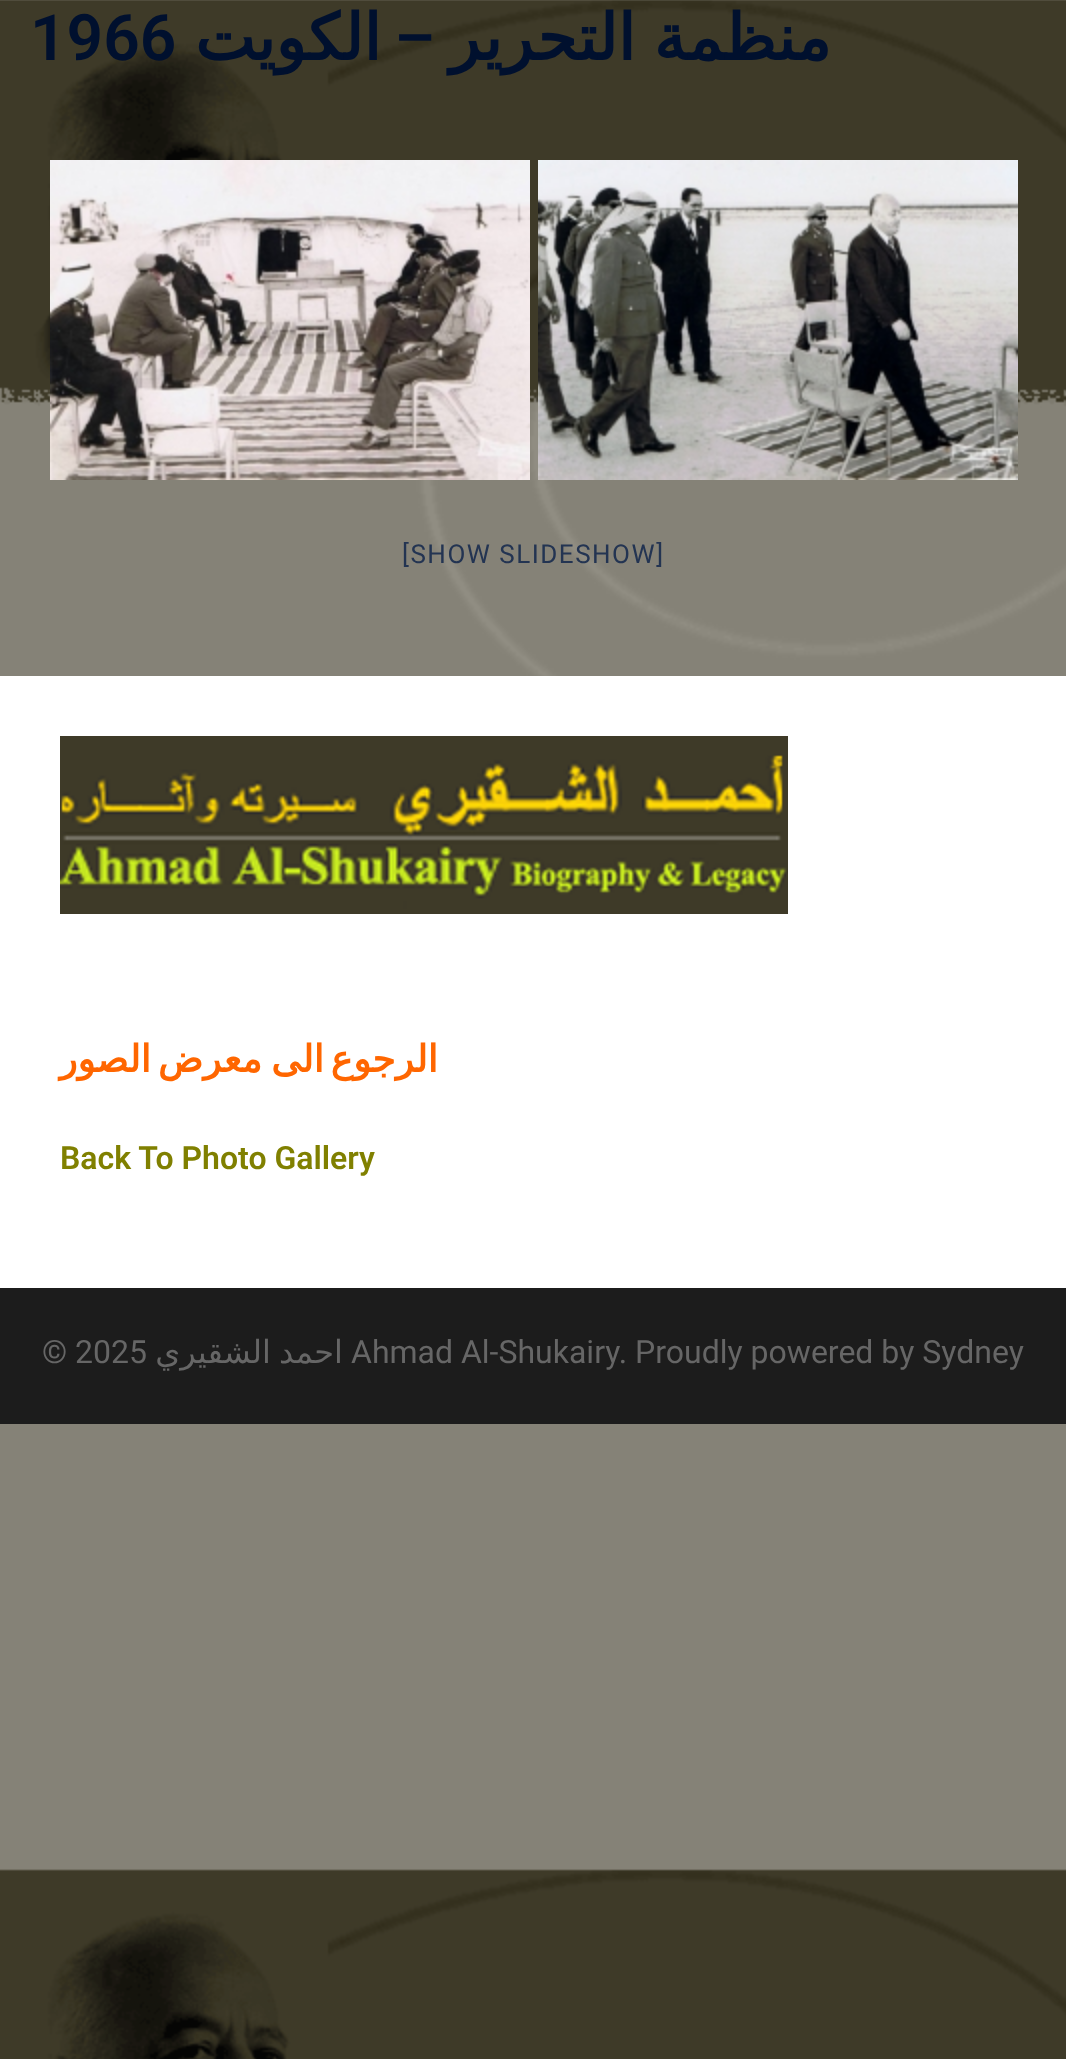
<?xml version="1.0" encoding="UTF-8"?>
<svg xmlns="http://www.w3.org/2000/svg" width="1066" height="2059">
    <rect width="100%" height="100%" fill="#FFFFFF"/>
    <image x="0" y="0" width="1066" height="2059" href="img_01.png"/>
    <text x="30" y="60" font-family="Roboto" font-size="64" font-weight="600" fill="#00102E">1966</text>
    <text x="381" y="60" font-family="DejaVu Sans" font-size="64" font-weight="700" direction="rtl" fill="#00102E">الكويت</text>
    <text x="435" y="60" font-family="Roboto" font-size="64" font-weight="600" direction="rtl" fill="#00102E">–</text>
    <text x="831" y="60" word-spacing="-2" font-family="DejaVu Sans" font-size="64" font-weight="700" direction="rtl" fill="#00102E">منظمة التحرير</text>
    <image x="50" y="160" width="480" height="320" href="img_02.png"/>
    <image x="538" y="160" width="480" height="320" href="img_03.png"/>
    <text x="402" y="563" font-family="Roboto" font-size="26" letter-spacing="1.5" fill="#233452">[SHOW SLIDESHOW]</text>
    <rect x="0" y="676" width="1066" height="612" fill="#FFFFFF"/>
    <image x="60" y="736" width="728" height="178" href="img_04.png"/>
    <text x="151" y="1072" font-family="DejaVu Sans" font-size="37.5" font-weight="700" direction="rtl" fill="#FF6600">الصور</text>
    <text x="324" y="1072" word-spacing="-3" font-family="DejaVu Sans" font-size="37.5" font-weight="700" direction="rtl" fill="#FF6600">الى معرض</text>
    <text x="438" y="1072" font-family="DejaVu Sans" font-size="37.5" font-weight="700" direction="rtl" fill="#FF6600">الرجوع</text>
    <text x="60" y="1169" font-family="Roboto" font-size="32" font-weight="600" fill="#808000">Back To Photo Gallery</text>
    <rect x="0" y="1288" width="1066" height="136" fill="#1C1C1C"/>
    <text x="42" y="1363" font-family="Roboto" font-size="32" fill="#666666">© 2025</text>
    <text x="343" y="1363" word-spacing="-2" font-family="DejaVu Sans" font-size="32" direction="rtl" fill="#666666">احمد الشقيري</text>
    <text x="351" y="1363" font-family="Roboto" font-size="32" fill="#666666">Ahmad Al-Shukairy. Proudly powered by Sydney</text>
</svg>
